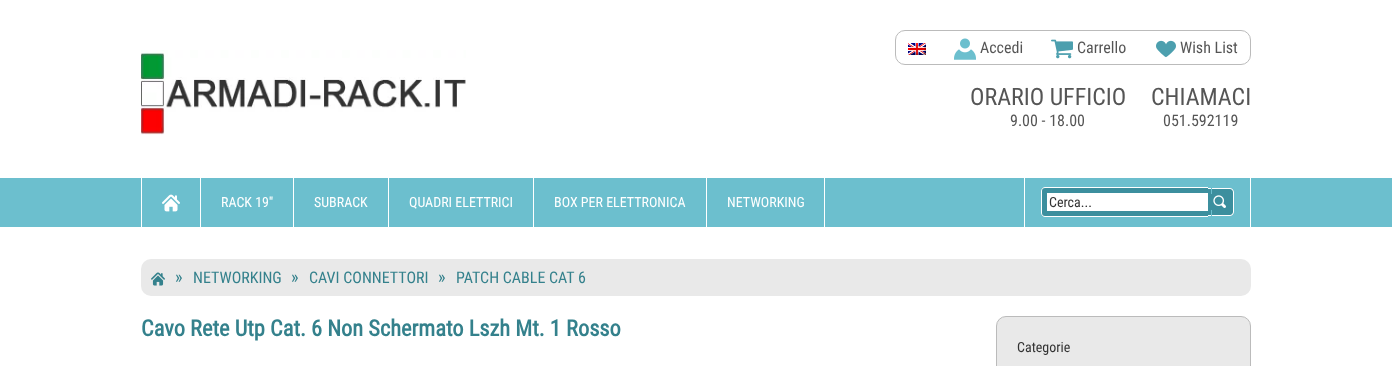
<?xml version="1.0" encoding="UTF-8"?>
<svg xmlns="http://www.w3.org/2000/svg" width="1392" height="366">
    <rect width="100%" height="100%" fill="#FFFFFF"/>
    <image x="141" y="50" width="325" height="85" href="img_01.png"/>
    <rect x="895.5" y="30.5" width="355" height="34" rx="9.5" fill="none" stroke="#BBBBBB"/>
    <image x="908" y="43" width="18" height="12" href="img_02.png"/>
    <image x="954" y="38" width="22" height="22" href="img_03.png"/>
    <text x="980" y="53" font-family="Roboto Condensed" font-size="16" fill="#555555">Accedi</text>
    <image x="1051" y="39" width="22" height="20" href="img_04.png"/>
    <text x="1077" y="53" font-family="Roboto Condensed" font-size="16" fill="#555555">Carrello</text>
    <image x="1156" y="40" width="20" height="18" href="img_05.png"/>
    <text x="1180" y="53" font-family="Roboto Condensed" font-size="16" fill="#555555">Wish List</text>
    <text x="970" y="105" font-family="Roboto Condensed" font-size="24" fill="#555555">ORARIO UFFICIO</text>
    <text x="1010" y="126" font-family="Roboto Condensed" font-size="16" fill="#555555">9.00 - 18.00</text>
    <text x="1151" y="105" font-family="Roboto Condensed" font-size="24" fill="#555555">CHIAMACI</text>
    <text x="1163" y="126" font-family="Roboto Condensed" font-size="16" fill="#555555">051.592119</text>
    <rect x="0" y="178" width="1392" height="49" fill="#6CBFCE"/>
    <rect x="141" y="178" width="1" height="49" fill="#FFFFFF"/>
    <rect x="200" y="178" width="1" height="49" fill="#FFFFFF"/>
    <image x="162" y="194" width="18" height="18" href="img_06.png"/>
    <rect x="293" y="178" width="1" height="49" fill="#FFFFFF"/>
    <text x="221" y="207" font-family="Roboto Condensed" font-size="14" fill="#FFFFFF">RACK 19''</text>
    <rect x="388" y="178" width="1" height="49" fill="#FFFFFF"/>
    <text x="314" y="207" font-family="Roboto Condensed" font-size="14" fill="#FFFFFF">SUBRACK</text>
    <rect x="533" y="178" width="1" height="49" fill="#FFFFFF"/>
    <text x="409" y="207" font-family="Roboto Condensed" font-size="14" fill="#FFFFFF">QUADRI ELETTRICI</text>
    <rect x="706" y="178" width="1" height="49" fill="#FFFFFF"/>
    <text x="554" y="207" font-family="Roboto Condensed" font-size="14" fill="#FFFFFF">BOX PER ELETTRONICA</text>
    <rect x="824" y="178" width="1" height="49" fill="#FFFFFF"/>
    <text x="727" y="207" font-family="Roboto Condensed" font-size="14" fill="#FFFFFF">NETWORKING</text>
    <rect x="1250" y="178" width="1" height="49" fill="#FFFFFF"/>
    <rect x="1024" y="178" width="1" height="49" fill="#FFFFFF"/>
    <path d="M 1045 187 H 1208 V 217 H 1045 C 1043 217 1041 215 1041 213 V 191 C 1041 189 1043 187 1045 187 Z" fill="#3C8F9E"/>
    <path d="M 1045 187 H 1208 V 217 H 1045 C 1043 217 1041 215 1041 213 V 191 C 1041 189 1043 187 1045 187 Z M 1045 188 H 1208 V 216 H 1045 C 1043 216 1042 215 1042 213 V 191 C 1042 189 1043 188 1045 188 Z" fill="#FFFFFF" fill-rule="evenodd"/>
    <rect x="1208" y="188" width="3" height="28" fill="#3C8F9E"/>
    <rect x="1208" y="188" width="3" height="1" fill="#FFFFFF"/>
    <rect x="1208" y="215" width="3" height="1" fill="#FFFFFF"/>
    <path d="M 1212 188 H 1230 C 1232 188 1234 190 1234 192 V 212 C 1234 214 1232 216 1230 216 H 1212 Z" fill="#3C8F9E"/>
    <path d="M 1212 188 H 1230 C 1232 188 1234 190 1234 192 V 212 C 1234 214 1232 216 1230 216 H 1212 Z M 1212 189 H 1230 C 1231.5 189 1233 190.5 1233 192 V 212 C 1233 213.5 1231.5 215 1230 215 H 1212 Z" fill="#FFFFFF" fill-rule="evenodd"/>
    <rect x="1047" y="193" width="161" height="18" fill="#FFFFFF"/>
    <text x="1049" y="207" font-family="Roboto Condensed" font-size="14" fill="#333333">Cerca...</text>
    <rect x="1211" y="194" width="1" height="16" fill="#3C8F9E"/>
    <image x="1213" y="195" width="13" height="13" href="img_07.png"/>
    <rect x="141" y="259" width="1110" height="37" rx="10" fill="#E9E9E9"/>
    <image x="151" y="272" width="14" height="14" href="img_08.png"/>
    <text x="175" y="283" font-family="Roboto Condensed" font-size="18" fill="#34818C">»</text>
    <text x="193" y="283" font-family="Roboto Condensed" font-size="16" fill="#34818C">NETWORKING</text>
    <text x="291" y="283" font-family="Roboto Condensed" font-size="18" fill="#34818C">»</text>
    <text x="309" y="283" font-family="Roboto Condensed" font-size="16" fill="#34818C">CAVI CONNETTORI</text>
    <text x="438" y="283" font-family="Roboto Condensed" font-size="18" fill="#34818C">»</text>
    <text x="456" y="283" font-family="Roboto Condensed" font-size="16" fill="#34818C">PATCH CABLE CAT 6</text>
    <text x="141" y="336" font-family="Roboto Condensed" font-size="22.4" font-weight="700" fill="#34818C">Cavo Rete Utp Cat. 6 Non Schermato Lszh Mt. 1 Rosso</text>
    <rect x="996.5" y="316.5" width="254" height="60" rx="9.5" fill="#E9E9E9" stroke="#BBBBBB"/>
    <text x="1017" y="352" font-family="Roboto Condensed" font-size="14" fill="#333333">Categorie</text>
</svg>
